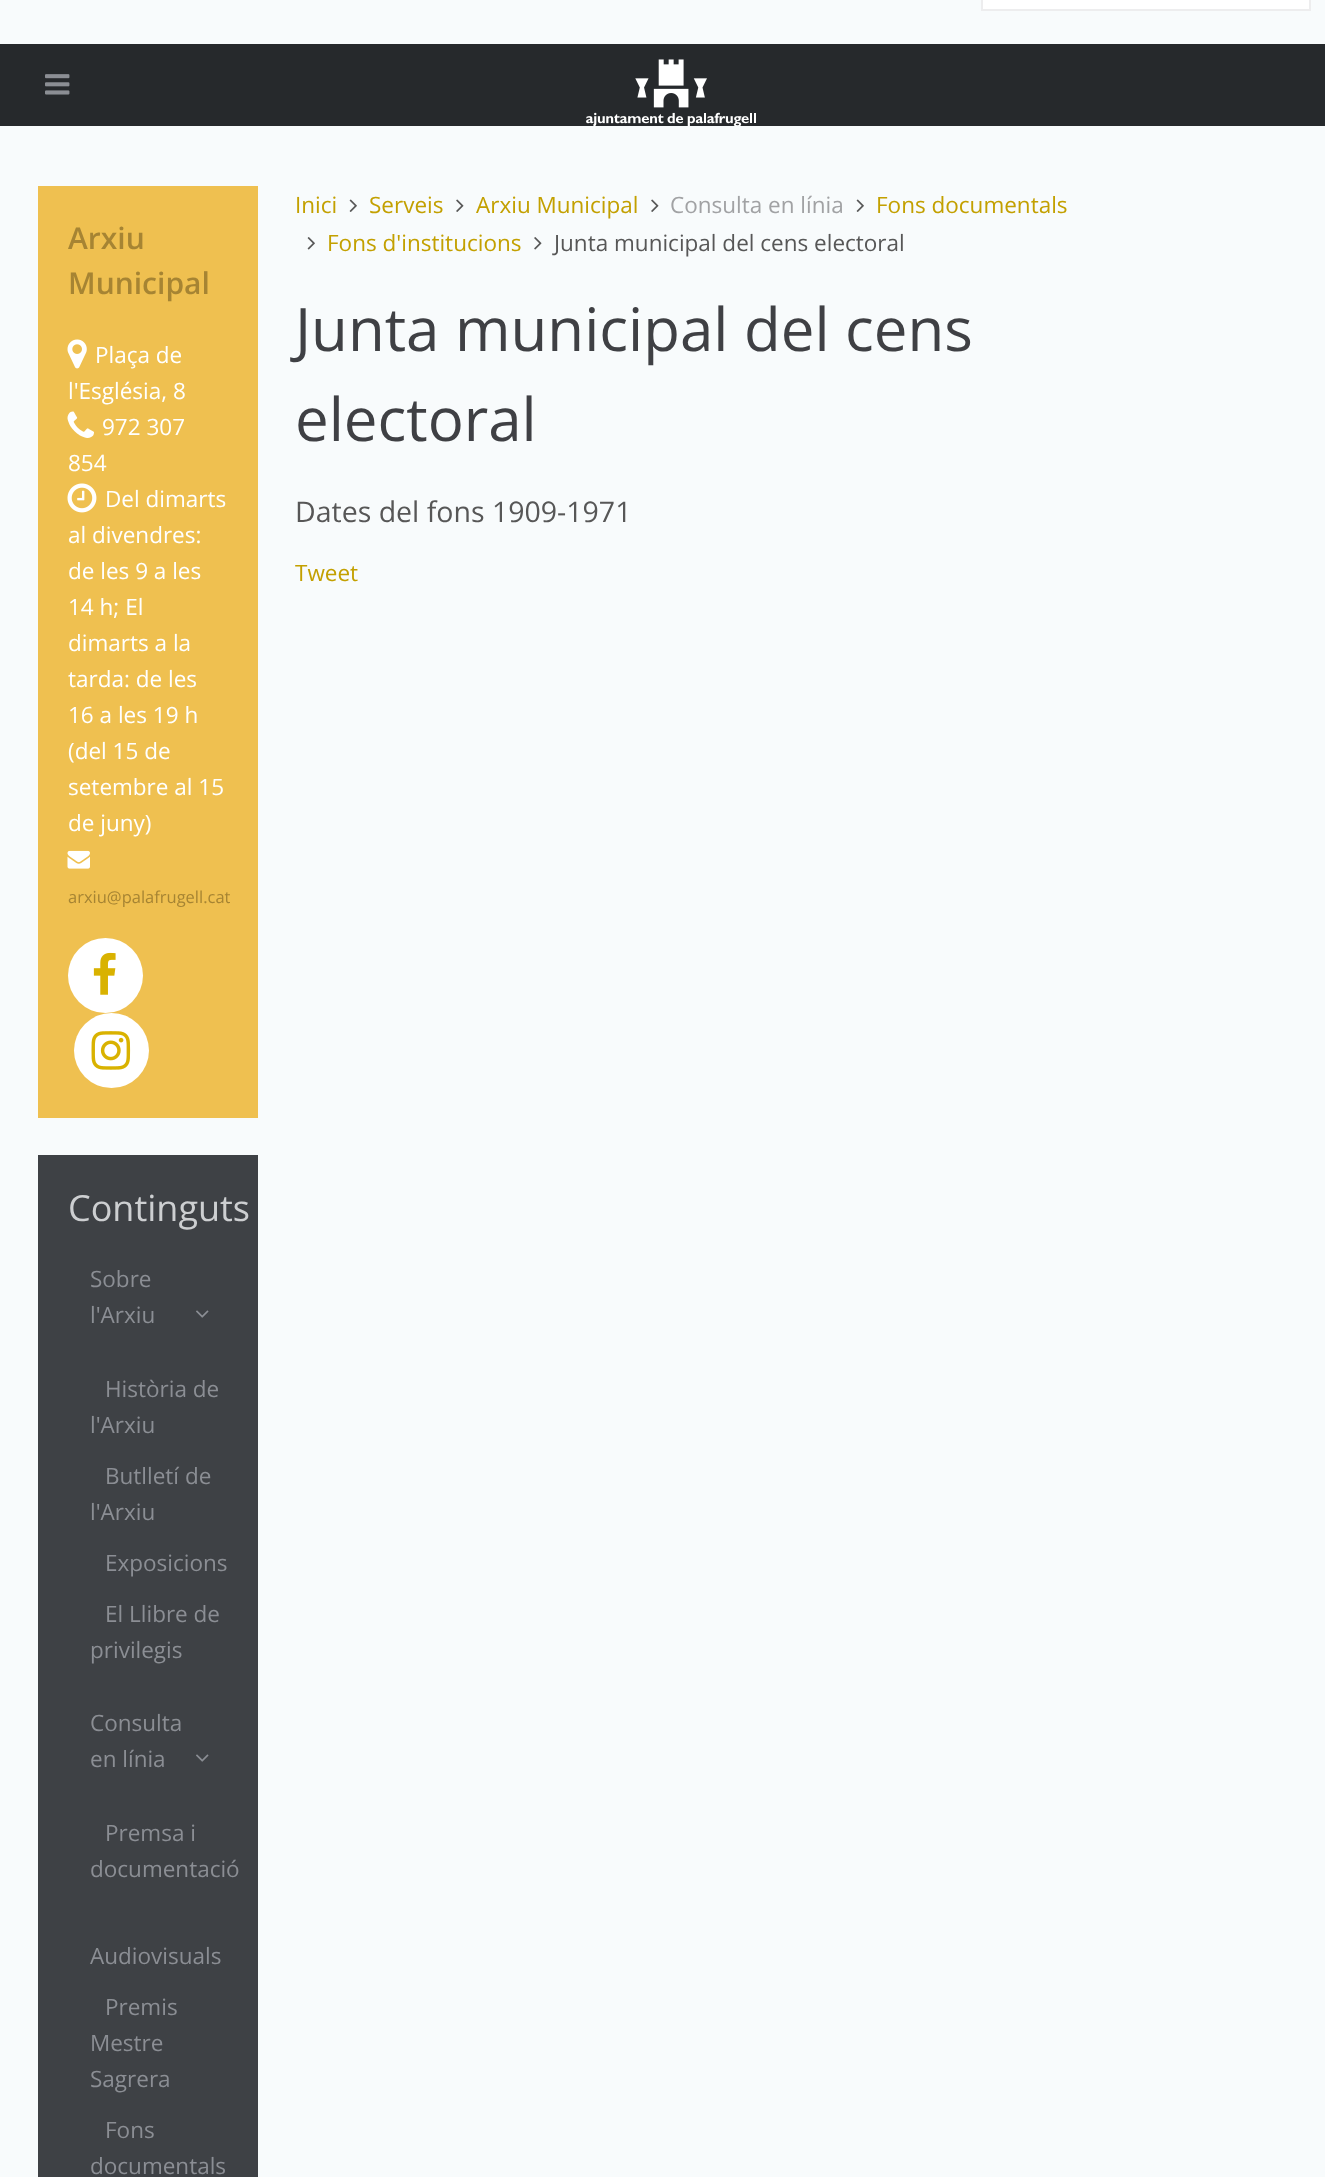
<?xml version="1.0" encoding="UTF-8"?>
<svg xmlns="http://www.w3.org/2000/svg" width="1325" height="2177">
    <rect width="100%" height="100%" fill="#F8FBFC"/>
    <rect x="982" y="-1" width="328" height="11" fill="#FFFFFF" stroke="#EDEDEE" stroke-width="2"/>
    <rect x="0" y="44" width="1325" height="82" fill="#26292C"/>
    <image x="45" y="74" width="25" height="21" href="img_01.png"/>
    <image x="586" y="59" width="170" height="67" href="img_02.png"/>
    <rect x="38" y="186" width="220" height="932" fill="#EFC050"/>
    <text font-family="Open Sans" font-size="30" font-weight="600" fill="#A68433">
        <tspan x="68" y="249">Arxiu</tspan>
        <tspan x="68" y="294">Municipal</tspan>
    </text>
    <image x="67" y="339" width="20" height="30" href="img_03.png"/>
    <text x="95" y="363" font-family="Open Sans" font-size="22.5" fill="#FFFFFF">Plaça de</text>
    <text x="68" y="399" font-family="Open Sans" font-size="22.5" fill="#FFFFFF">l'Església, 8</text>
    <image x="67" y="411" width="27" height="27" href="img_04.png"/>
    <text x="102" y="435" font-family="Open Sans" font-size="22.5" fill="#FFFFFF">972 307</text>
    <text x="68" y="471" font-family="Open Sans" font-size="22.5" fill="#FFFFFF">854</text>
    <image x="67" y="483" width="30" height="30" href="img_05.png"/>
    <text x="105" y="507" font-family="Open Sans" font-size="22.5" fill="#FFFFFF">Del dimarts</text>
    <text font-family="Open Sans" font-size="22.5" fill="#FFFFFF">
        <tspan x="68" y="543">al divendres:</tspan>
        <tspan x="68" y="579">de les 9 a les</tspan>
        <tspan x="68" y="615">14 h; El</tspan>
        <tspan x="68" y="651">dimarts a la</tspan>
        <tspan x="68" y="687">tarda: de les</tspan>
        <tspan x="68" y="723">16 a les 19 h</tspan>
        <tspan x="68" y="759">(del 15 de</tspan>
        <tspan x="68" y="795">setembre al 15</tspan>
        <tspan x="68" y="831">de juny)</tspan>
    </text>
    <image x="67" y="850" width="23" height="19" href="img_06.png"/>
    <text x="68" y="903" font-family="Open Sans" font-size="16.5" fill="#A68433">arxiu@palafrugell.cat</text>
    <circle cx="105.5" cy="975.5" r="37.5" fill="#FFFFFF"/>
    <image x="93" y="952" width="23" height="43" href="img_07.png"/>
    <circle cx="111.5" cy="1050.5" r="37.5" fill="#FFFFFF"/>
    <image x="91" y="1031" width="40" height="39" href="img_08.png"/>
    <rect x="38" y="1155" width="220" height="1022" fill="#3E4145"/>
    <text x="68" y="1221" font-family="Open Sans" font-size="36" fill="#CDCFD1">Continguts</text>
    <text font-family="Open Sans" font-size="22.5" fill="#8B8E94">
        <tspan x="90" y="1287">Sobre</tspan>
        <tspan x="90" y="1323">l'Arxiu</tspan>
    </text>
    <image x="196" y="1310" width="13" height="8" href="img_09.png"/>
    <text x="105" y="1397" font-family="Open Sans" font-size="22.5" fill="#8B8E94">Història de</text>
    <text x="90" y="1433" font-family="Open Sans" font-size="22.5" fill="#8B8E94">l'Arxiu</text>
    <text x="105" y="1484" font-family="Open Sans" font-size="22.5" fill="#8B8E94">Butlletí de</text>
    <text x="90" y="1520" font-family="Open Sans" font-size="22.5" fill="#8B8E94">l'Arxiu</text>
    <text x="105" y="1571" font-family="Open Sans" font-size="22.5" fill="#8B8E94">Exposicions</text>
    <text x="105" y="1622" font-family="Open Sans" font-size="22.5" fill="#8B8E94">El Llibre de</text>
    <text x="90" y="1658" font-family="Open Sans" font-size="22.5" fill="#8B8E94">privilegis</text>
    <text font-family="Open Sans" font-size="22.5" fill="#8B8E94">
        <tspan x="90" y="1731">Consulta</tspan>
        <tspan x="90" y="1767">en línia</tspan>
    </text>
    <image x="196" y="1754" width="13" height="8" href="img_09.png"/>
    <text x="105" y="1841" font-family="Open Sans" font-size="22.5" fill="#8B8E94">Premsa i</text>
    <text x="90" y="1877" font-family="Open Sans" font-size="22.5" fill="#8B8E94">documentació</text>
    <text x="90" y="1964" font-family="Open Sans" font-size="22.5" fill="#8B8E94">Audiovisuals</text>
    <text x="105" y="2015" font-family="Open Sans" font-size="22.5" fill="#8B8E94">Premis</text>
    <text font-family="Open Sans" font-size="22.5" fill="#8B8E94">
        <tspan x="90" y="2051">Mestre</tspan>
        <tspan x="90" y="2087">Sagrera</tspan>
    </text>
    <text x="105" y="2138" font-family="Open Sans" font-size="22.5" fill="#8B8E94">Fons</text>
    <text x="90" y="2174" font-family="Open Sans" font-size="22.5" fill="#8B8E94">documentals</text>
    <text x="295" y="213" font-family="Open Sans" font-size="22.5" fill="#C3A000">Inici</text>
    <image x="349" y="199" width="8" height="13" href="img_10.png"/>
    <text x="369" y="213" font-family="Open Sans" font-size="22.5" fill="#C3A000">Serveis</text>
    <image x="456" y="199" width="8" height="13" href="img_11.png"/>
    <text x="476" y="213" font-family="Open Sans" font-size="22.5" fill="#C3A000">Arxiu Municipal</text>
    <image x="651" y="199" width="8" height="13" href="img_11.png"/>
    <text x="670" y="213" font-family="Open Sans" font-size="22.5" fill="#A1A2A4">Consulta en línia</text>
    <image x="856" y="199" width="8" height="13" href="img_10.png"/>
    <text x="876" y="213" font-family="Open Sans" font-size="22.5" fill="#C3A000">Fons documentals</text>
    <image x="307" y="237" width="8" height="13" href="img_12.png"/>
    <text x="327" y="251" font-family="Open Sans" font-size="22.5" fill="#C3A000">Fons d'institucions</text>
    <image x="534" y="237" width="8" height="13" href="img_13.png"/>
    <text x="554" y="251" font-family="Open Sans" font-size="22.5" fill="#575757">Junta municipal del cens electoral</text>
    <text font-family="Open Sans" font-size="60" fill="#3F4044">
        <tspan x="295" y="351">Junta municipal del cens</tspan>
        <tspan x="295" y="441">electoral</tspan>
    </text>
    <text x="295" y="522" font-family="Open Sans" font-size="28.5" fill="#575757">Dates del fons 1909-1971</text>
    <text x="295" y="581" font-family="Open Sans" font-size="22.5" fill="#C3A000">Tweet</text>
</svg>
